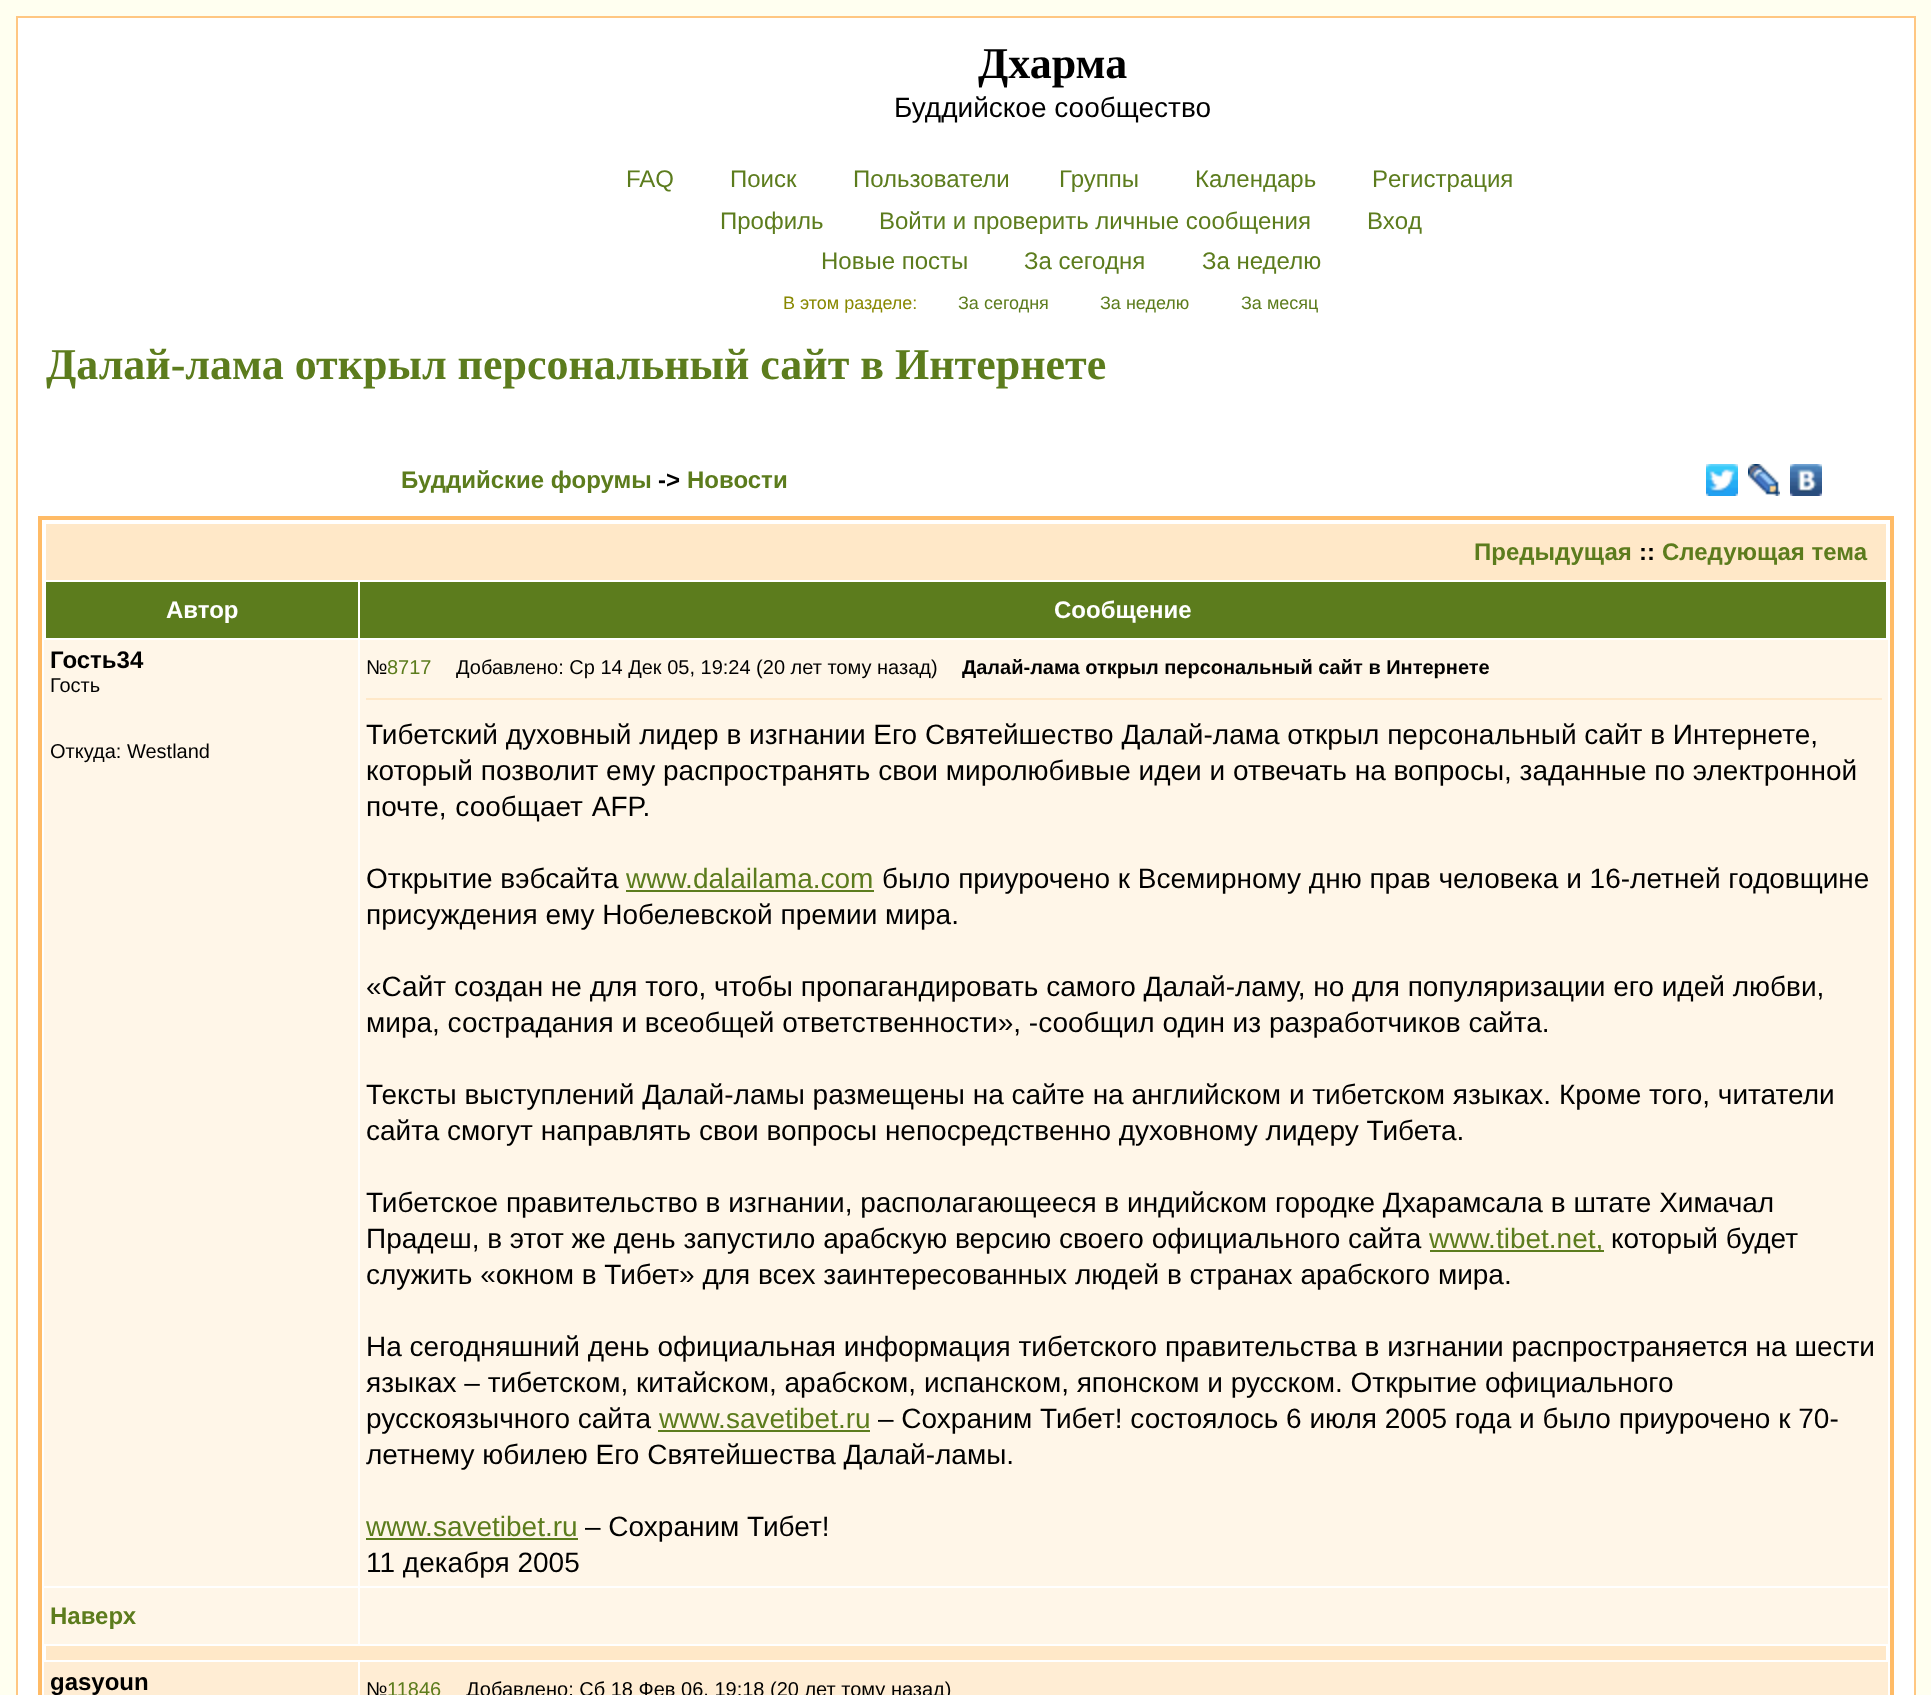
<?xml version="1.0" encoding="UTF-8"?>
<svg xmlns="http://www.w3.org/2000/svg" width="1931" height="1695">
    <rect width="100%" height="100%" fill="#FFFFF0"/>
    <rect x="17" y="17" width="1898" height="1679" fill="#FFFFFF" stroke="#FFC782" stroke-width="2"/>
    <text x="978" y="78" font-family="Liberation Serif" font-size="44" font-weight="700" fill="#000000">Дхарма</text>
    <text x="894" y="117" font-family="Liberation Sans" font-size="28" fill="#000000">Буддийское сообщество</text>
    <text x="626" y="187" font-family="Liberation Sans" font-size="24" fill="#5C7C1D">FAQ</text>
    <text x="730" y="187" font-family="Liberation Sans" font-size="24" fill="#5C7C1D">Поиск</text>
    <text x="853" y="187" font-family="Liberation Sans" font-size="24" fill="#5C7C1D">Пользователи</text>
    <text x="1059" y="187" font-family="Liberation Sans" font-size="24" fill="#5C7C1D">Группы</text>
    <text x="1195" y="187" font-family="Liberation Sans" font-size="24" fill="#5C7C1D">Календарь</text>
    <text x="1372" y="187" font-family="Liberation Sans" font-size="24" fill="#5C7C1D">Peгиcтрaция</text>
    <text x="720" y="229" font-family="Liberation Sans" font-size="24" fill="#5C7C1D">Профиль</text>
    <text x="879" y="229" font-family="Liberation Sans" font-size="24" fill="#5C7C1D">Войти и проверить личные сообщения</text>
    <text x="1367" y="229" font-family="Liberation Sans" font-size="24" fill="#5C7C1D">Вхoд</text>
    <text x="821" y="269" font-family="Liberation Sans" font-size="24" fill="#5C7C1D">Новые посты</text>
    <text x="1024" y="269" font-family="Liberation Sans" font-size="24" fill="#5C7C1D">За сегодня</text>
    <text x="1202" y="269" font-family="Liberation Sans" font-size="24" fill="#5C7C1D">За неделю</text>
    <text x="783" y="309" font-family="Liberation Sans" font-size="18" fill="#888800">В этом разделе:</text>
    <text x="958" y="309" font-family="Liberation Sans" font-size="18" fill="#5C7C1D">За сегодня</text>
    <text x="1100" y="309" font-family="Liberation Sans" font-size="18" fill="#5C7C1D">За неделю</text>
    <text x="1241" y="309" font-family="Liberation Sans" font-size="18" fill="#5C7C1D">За месяц</text>
    <text x="46" y="379" font-family="Liberation Serif" font-size="44" font-weight="700" fill="#5C7C1D">Далай-лама открыл персональный сайт в Интернете</text>
    <text x="401" y="488" font-family="Liberation Sans" font-size="24" font-weight="700" fill="#5C7C1D">Буддийские форумы</text>
    <text x="658" y="488" font-family="Liberation Sans" font-size="24" font-weight="700" fill="#000000">-&gt;</text>
    <text x="687" y="488" font-family="Liberation Sans" font-size="24" font-weight="700" fill="#5C7C1D">Новости</text>
    <image x="1706" y="464" width="32" height="32" href="img_01.png"/>
    <image x="1748" y="464" width="32" height="32" href="img_02.png"/>
    <image x="1790" y="464" width="32" height="32" href="img_03.png"/>
    <rect x="40" y="518" width="1852" height="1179" fill="none" stroke="#FFBB66" stroke-width="4"/>
    <rect x="46" y="524" width="1840" height="56" fill="#FFE8C8"/>
    <text x="1474" y="560" font-family="Liberation Sans" font-size="24" font-weight="700" fill="#5C7C1D">Предыдущая</text>
    <text x="1639" y="560" font-family="Liberation Sans" font-size="24" font-weight="700" fill="#000000">::</text>
    <text x="1662" y="560" font-family="Liberation Sans" font-size="24" font-weight="700" fill="#5C7C1D">Следующая тема</text>
    <rect x="46" y="582" width="312" height="56" fill="#5C7C1D"/>
    <text x="166" y="618" font-family="Liberation Sans" font-size="24" font-weight="700" fill="#FFFFFF">Автор</text>
    <rect x="360" y="582" width="1526" height="56" fill="#5C7C1D"/>
    <text x="1054" y="618" font-family="Liberation Sans" font-size="24" font-weight="700" fill="#FFFFFF">Сообщение</text>
    <rect x="44" y="640" width="314" height="946" fill="#FFF6E8"/>
    <text x="50" y="668" font-family="Liberation Sans" font-size="24" font-weight="700" fill="#000000">Гость34</text>
    <text x="50" y="692" font-family="Liberation Sans" font-size="20" fill="#000000">Гость</text>
    <text x="50" y="758" font-family="Liberation Sans" font-size="20" fill="#000000">Откуда: Westland</text>
    <rect x="360" y="640" width="1528" height="946" fill="#FFF6E8"/>
    <text x="366" y="674" font-family="Liberation Sans" font-size="20" fill="#000000">№</text>
    <text x="387" y="674" font-family="Liberation Sans" font-size="20" fill="#5C7C1D">8717</text>
    <text x="456" y="674" font-family="Liberation Sans" font-size="20" fill="#000000">Добавлено: Ср 14 Дек 05, 19:24 (20 лет тому назад)</text>
    <text x="962" y="674" font-family="Liberation Sans" font-size="20" font-weight="700" fill="#000000">Далай-лама открыл персональный сайт в Интернете</text>
    <rect x="366" y="698" width="1516" height="2" fill="#FFE8C8"/>
    <text font-family="Liberation Sans" font-size="28" fill="#000000">
        <tspan x="366" y="744">Тибетский духовный лидер в изгнании Его Святейшество Далай-лама открыл персональный сайт в Интернете,</tspan>
        <tspan x="366" y="780">который позволит ему распространять свои миролюбивые идеи и отвечать на вопросы, заданные по электронной</tspan>
        <tspan x="366" y="816" word-spacing="1">почте, сообщает AFP.</tspan>
    </text>
    <text x="366" y="888" font-family="Liberation Sans" font-size="28" fill="#000000">Открытие вэбсайта</text>
    <text x="626" y="888" font-family="Liberation Sans" font-size="28" fill="#5C7C1D">www.dalailama.com</text>
    <rect x="626" y="890" width="248" height="2" fill="#5C7C1D"/>
    <text x="882" y="888" font-family="Liberation Sans" font-size="28" fill="#000000">было приурочено к Всемирному дню прав человека и 16-летней годовщине</text>
    <text x="366" y="924" font-family="Liberation Sans" font-size="28" fill="#000000">присуждения ему Нобелевской премии мира.</text>
    <text font-family="Liberation Sans" font-size="28" fill="#000000">
        <tspan x="366" y="996">«Сайт создан не для того, чтобы пропагандировать самого Далай-ламу, но для популяризации его идей любви,</tspan>
        <tspan x="366" y="1032">мира, сострадания и всеобщей ответственности», -сообщил один из разработчиков сайта.</tspan>
    </text>
    <text font-family="Liberation Sans" font-size="28" fill="#000000">
        <tspan x="366" y="1104">Тексты выступлений Далай-ламы размещены на сайте на английском и тибетском языках. Кроме того, читатели</tspan>
        <tspan x="366" y="1140">сайта смогут направлять свои вопросы непосредственно духовному лидеру Тибета.</tspan>
    </text>
    <text font-family="Liberation Sans" font-size="28" fill="#000000">
        <tspan x="366" y="1212">Тибетское правительство в изгнании, располагающееся в индийском городке Дхарамсала в штате Химачал</tspan>
        <tspan x="366" y="1248">Прадеш, в этот же день запустило арабскую версию своего официального сайта</tspan>
    </text>
    <rect x="1430" y="1250" width="174" height="2" fill="#5C7C1D"/>
    <text x="1429" y="1248" font-family="Liberation Sans" font-size="28" fill="#5C7C1D">www.tibet.net,</text>
    <text x="1611" y="1248" font-family="Liberation Sans" font-size="28" fill="#000000">который будет</text>
    <text x="366" y="1284" font-family="Liberation Sans" font-size="28" fill="#000000">служить «окном в Тибет» для всех заинтересованных людей в странах арабского мира.</text>
    <text font-family="Liberation Sans" font-size="28" fill="#000000">
        <tspan x="366" y="1356">На сегодняшний день официальная информация тибетского правительства в изгнании распространяется на шести</tspan>
        <tspan x="366" y="1392">языках – тибетском, китайском, арабском, испанском, японском и русском. Открытие официального</tspan>
        <tspan x="366" y="1428">русскоязычного сайта</tspan>
    </text>
    <text x="659" y="1428" font-family="Liberation Sans" font-size="28" fill="#5C7C1D">www.savetibet.ru</text>
    <rect x="658" y="1430" width="212" height="2" fill="#5C7C1D"/>
    <text x="878" y="1428" font-family="Liberation Sans" font-size="28" fill="#000000">– Сохраним Тибет! состоялось 6 июля 2005 года и было приурочено к 70-</text>
    <text x="366" y="1464" font-family="Liberation Sans" font-size="28" fill="#000000">летнему юбилею Его Святейшества Далай-ламы.</text>
    <text x="366" y="1536" font-family="Liberation Sans" font-size="28" fill="#5C7C1D">www.savetibet.ru</text>
    <rect x="366" y="1538" width="212" height="2" fill="#5C7C1D"/>
    <text x="585" y="1536" font-family="Liberation Sans" font-size="28" fill="#000000">– Сохраним Тибет!</text>
    <text x="366" y="1572" font-family="Liberation Sans" font-size="28" fill="#000000">11 декабря 2005</text>
    <rect x="44" y="1588" width="314" height="56" fill="#FFF6E8"/>
    <text x="50" y="1624" font-family="Liberation Sans" font-size="24" font-weight="700" fill="#5C7C1D">Наверх</text>
    <rect x="360" y="1588" width="1528" height="56" fill="#FFF6E8"/>
    <rect x="46" y="1646" width="1840" height="14" fill="#FFE8C8"/>
    <rect x="44" y="1662" width="314" height="33" fill="#FFEDD4"/>
    <text x="50" y="1690" font-family="Liberation Sans" font-size="24" font-weight="700" fill="#000000">gasyoun</text>
    <rect x="360" y="1662" width="1528" height="33" fill="#FFEDD4"/>
    <text x="366" y="1696" font-family="Liberation Sans" font-size="20" fill="#000000">№</text>
    <text x="387" y="1696" font-family="Liberation Sans" font-size="20" fill="#5C7C1D">11846</text>
    <text x="466" y="1696" font-family="Liberation Sans" font-size="20" fill="#000000">Добавлено: Сб 18 Фев 06, 19:18 (20 лет тому назад)</text>
</svg>
